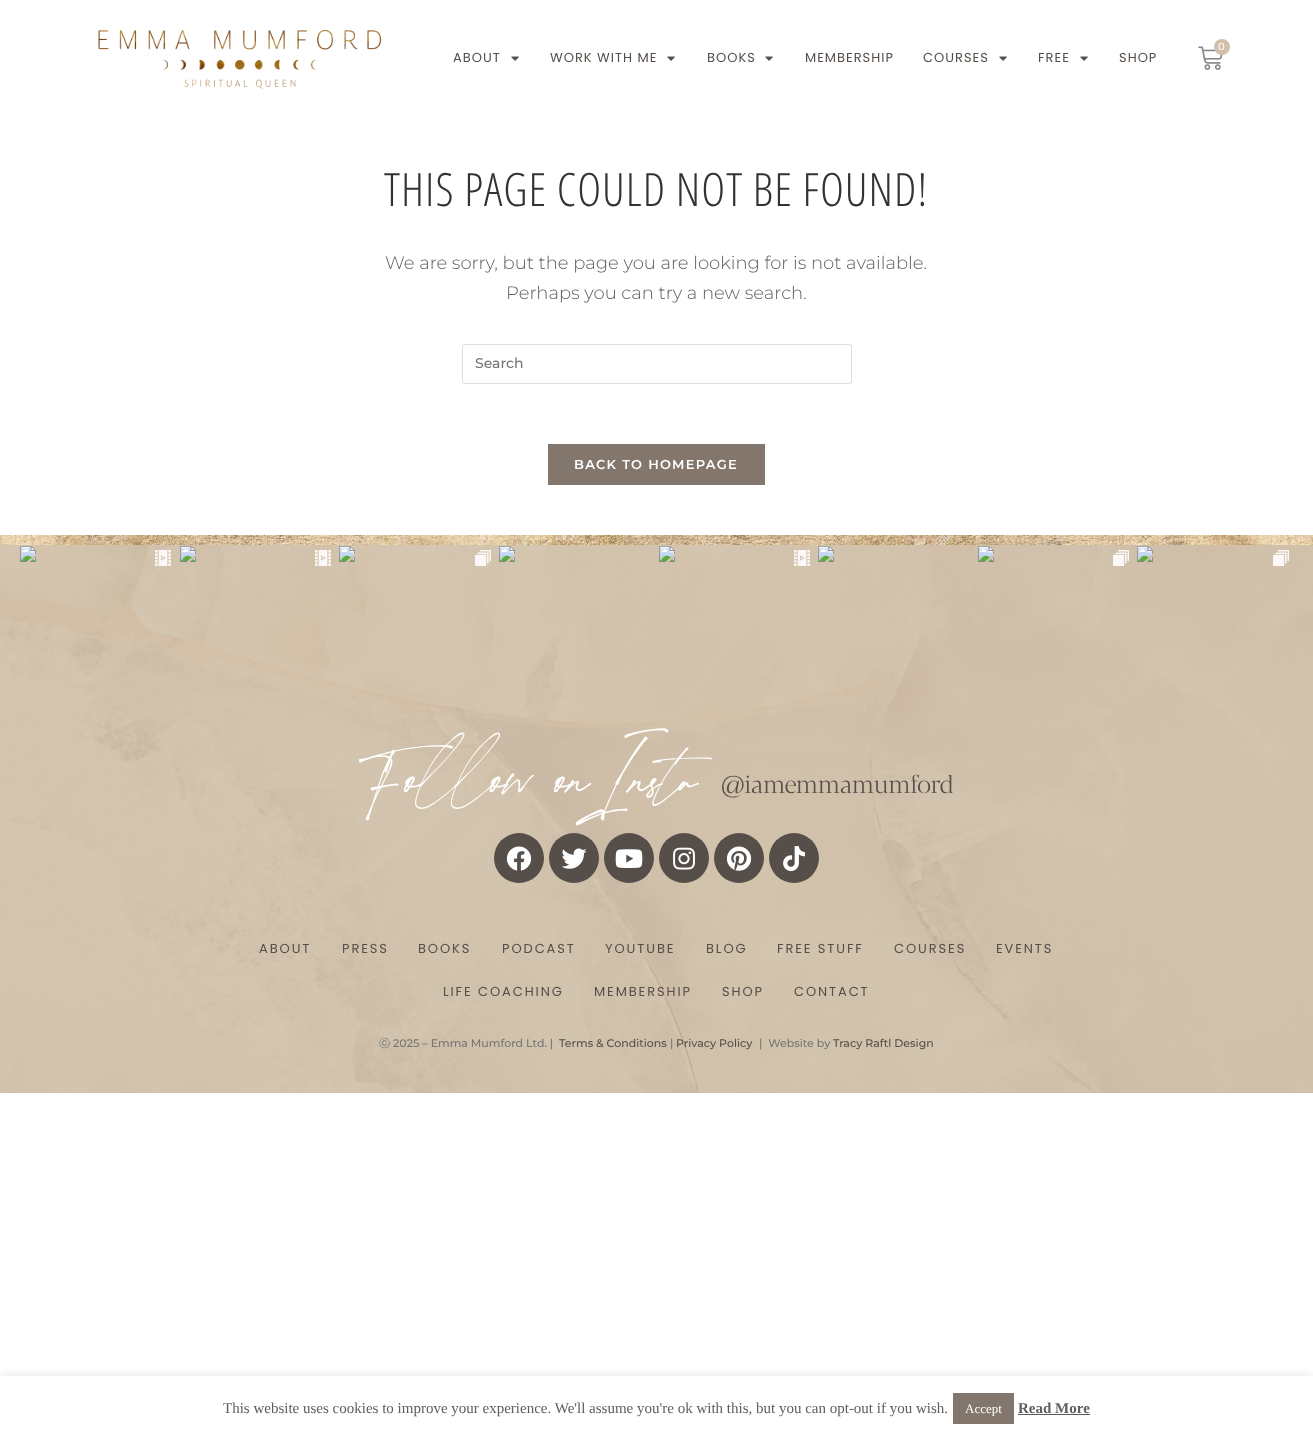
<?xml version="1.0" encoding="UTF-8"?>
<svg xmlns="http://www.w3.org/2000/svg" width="1313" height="1436">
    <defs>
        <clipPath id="clip1"><rect x="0" y="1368" width="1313" height="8"/></clipPath>
        <filter id="blur1" x="-50%" y="-200%" width="200%" height="500%"><feGaussianBlur stdDeviation="5"/></filter>
    </defs>
    <rect width="100%" height="100%" fill="#FFFFFF"/>
    <image x="98" y="29" width="284" height="60" href="img_01.png"/>
    <image x="1198" y="46" width="25" height="24" href="img_02.png"/>
    <circle cx="1222" cy="47" r="8" fill="#D1C1AA"/>
    <text x="1218" y="50" font-family="Montserrat" font-size="10" font-weight="500" fill="#FFFFFF">0</text>
    <text x="453" y="62" font-family="Poppins" font-size="13" letter-spacing="1" fill="#554E49">ABOUT</text>
    <image x="511" y="56" width="8" height="5" href="img_03.png"/>
    <text x="550" y="62" font-family="Poppins" font-size="13" letter-spacing="1" fill="#554E49">WORK WITH ME</text>
    <image x="667" y="56" width="8" height="5" href="img_03.png"/>
    <text x="707" y="62" font-family="Poppins" font-size="13" letter-spacing="1" fill="#554E49">BOOKS</text>
    <image x="765" y="56" width="8" height="5" href="img_03.png"/>
    <text x="805" y="62" font-family="Poppins" font-size="13" letter-spacing="1" fill="#554E49">MEMBERSHIP</text>
    <text x="923" y="62" font-family="Poppins" font-size="13" letter-spacing="1" fill="#554E49">COURSES</text>
    <image x="999" y="56" width="8" height="5" href="img_03.png"/>
    <text x="1038" y="62" font-family="Poppins" font-size="13" letter-spacing="1" fill="#554E49">FREE</text>
    <image x="1080" y="56" width="8" height="5" href="img_03.png"/>
    <text x="1119" y="62" font-family="Poppins" font-size="13" letter-spacing="1" fill="#554E49">SHOP</text>
    <text x="384" y="206" font-family="Open Sans Condensed" font-size="46" font-weight="300" letter-spacing="1" fill="#333333">THIS PAGE COULD NOT BE FOUND!</text>
    <text x="385" y="269" font-family="Montserrat" font-size="18" font-weight="300" fill="#5E5E5E">We are sorry, but the page you are looking for is not available.</text>
    <text x="506" y="299" font-family="Montserrat" font-size="18" font-weight="300" fill="#5E5E5E">Perhaps you can try a new search.</text>
    <rect x="462.5" y="344.5" width="389" height="39" rx="2.5" fill="none" stroke="#DDDDDD"/>
    <text x="475" y="368" font-family="Montserrat" font-size="14" font-weight="500" fill="#757575">Search</text>
    <rect x="548" y="444" width="217" height="41" fill="#83766C"/>
    <text x="574" y="469" font-family="Montserrat" font-size="13" font-weight="600" letter-spacing="1.25" fill="#FFFFFF">BACK TO HOMEPAGE</text>
    <image x="0" y="535" width="1313" height="10" href="img_04.png"/>
    <image x="0" y="545" width="1313" height="548" href="img_05.png"/>
    <image x="20" y="546" width="1269" height="20" href="img_06.png"/>
    <text x="359" y="814" font-family="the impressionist" font-size="45" letter-spacing="-1.4" fill="#FFFFFF">Follow onInsta</text>
    <text x="721" y="793" font-family="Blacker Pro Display" font-size="25" font-weight="300" fill="#554E49">@iamemmamumford</text>
    <circle cx="519" cy="858" r="25" fill="#554E49"/>
    <image x="506" y="846" width="26" height="25" href="img_07.png"/>
    <circle cx="574" cy="858" r="25" fill="#554E49"/>
    <image x="561" y="848" width="26" height="21" href="img_08.png"/>
    <circle cx="629" cy="858" r="25" fill="#554E49"/>
    <image x="615" y="849" width="28" height="19" href="img_09.png"/>
    <circle cx="684" cy="858" r="25" fill="#554E49"/>
    <image x="673" y="847" width="22" height="23" href="img_10.png"/>
    <circle cx="739" cy="858" r="25" fill="#554E49"/>
    <image x="726" y="846" width="26" height="25" href="img_11.png"/>
    <circle cx="794" cy="858" r="25" fill="#554E49"/>
    <image x="783" y="846" width="22" height="26" href="img_12.png"/>
    <text x="259" y="953" font-family="Poppins" font-size="13" letter-spacing="1.9" fill="#554E49">ABOUT</text>
    <text x="342" y="953" font-family="Poppins" font-size="13" letter-spacing="1.9" fill="#554E49">PRESS</text>
    <text x="418" y="953" font-family="Poppins" font-size="13" letter-spacing="1.9" fill="#554E49">BOOKS</text>
    <text x="502" y="953" font-family="Poppins" font-size="13" letter-spacing="1.9" fill="#554E49">PODCAST</text>
    <text x="605" y="953" font-family="Poppins" font-size="13" letter-spacing="1.9" fill="#554E49">YOUTUBE</text>
    <text x="706" y="953" font-family="Poppins" font-size="13" letter-spacing="1.9" fill="#554E49">BLOG</text>
    <text x="777" y="953" font-family="Poppins" font-size="13" letter-spacing="1.9" fill="#554E49">FREE STUFF</text>
    <text x="894" y="953" font-family="Poppins" font-size="13" letter-spacing="1.9" fill="#554E49">COURSES</text>
    <text x="996" y="953" font-family="Poppins" font-size="13" letter-spacing="1.9" fill="#554E49">EVENTS</text>
    <text x="443" y="996" font-family="Poppins" font-size="13" letter-spacing="1.9" fill="#554E49">LIFE COACHING</text>
    <text x="594" y="996" font-family="Poppins" font-size="13" letter-spacing="1.9" fill="#554E49">MEMBERSHIP</text>
    <text x="722" y="996" font-family="Poppins" font-size="13" letter-spacing="1.9" fill="#554E49">SHOP</text>
    <text x="794" y="996" font-family="Poppins" font-size="13" letter-spacing="1.9" fill="#554E49">CONTACT</text>
    <text x="379" y="1047" font-family="WenQuanYi Zen Hei" font-size="11" font-weight="500" fill="#757575">ⓒ</text>
    <text x="393" y="1047" font-family="Montserrat" font-size="11" font-weight="500" fill="#757575">2025 – Emma Mumford Ltd. |</text>
    <text x="559" y="1047" font-family="Montserrat" font-size="11" font-weight="500" fill="#554E49">Terms &amp; Conditions</text>
    <text x="670" y="1047" font-family="Montserrat" font-size="11" font-weight="500" fill="#757575">|</text>
    <text x="676" y="1047" font-family="Montserrat" font-size="11" font-weight="500" fill="#554E49">Privacy Policy</text>
    <text x="759" y="1047" font-family="Montserrat" font-size="11" font-weight="500" fill="#757575" xml:space="preserve">|  Website by</text>
    <text x="833" y="1047" font-family="Montserrat" font-size="11" font-weight="500" fill="#554E49">Tracy Raftl Design</text>
    <g clip-path="url(#clip1)">
        <rect x="0" y="1375" width="1313" height="60" fill="#ACABAB" fill-opacity="0.3" filter="url(#blur1)"/>
    </g>
    <text x="223" y="1413" font-family="Liberation Serif" font-size="15" fill="#5E5E5E">This website uses cookies to improve your experience. We'll assume you're ok with this, but you can opt-out if you wish.</text>
    <rect x="953" y="1393" width="61" height="31" fill="#83766C"/>
    <text x="965" y="1413" font-family="Liberation Serif" font-size="13" fill="#FFFFFF">Accept</text>
    <text x="1018" y="1413" font-family="Liberation Serif" font-size="15" font-weight="700" fill="#5E5E5E">Read More</text>
    <rect x="1018" y="1414" width="72" height="1" fill="#5B5B5B"/>
</svg>
